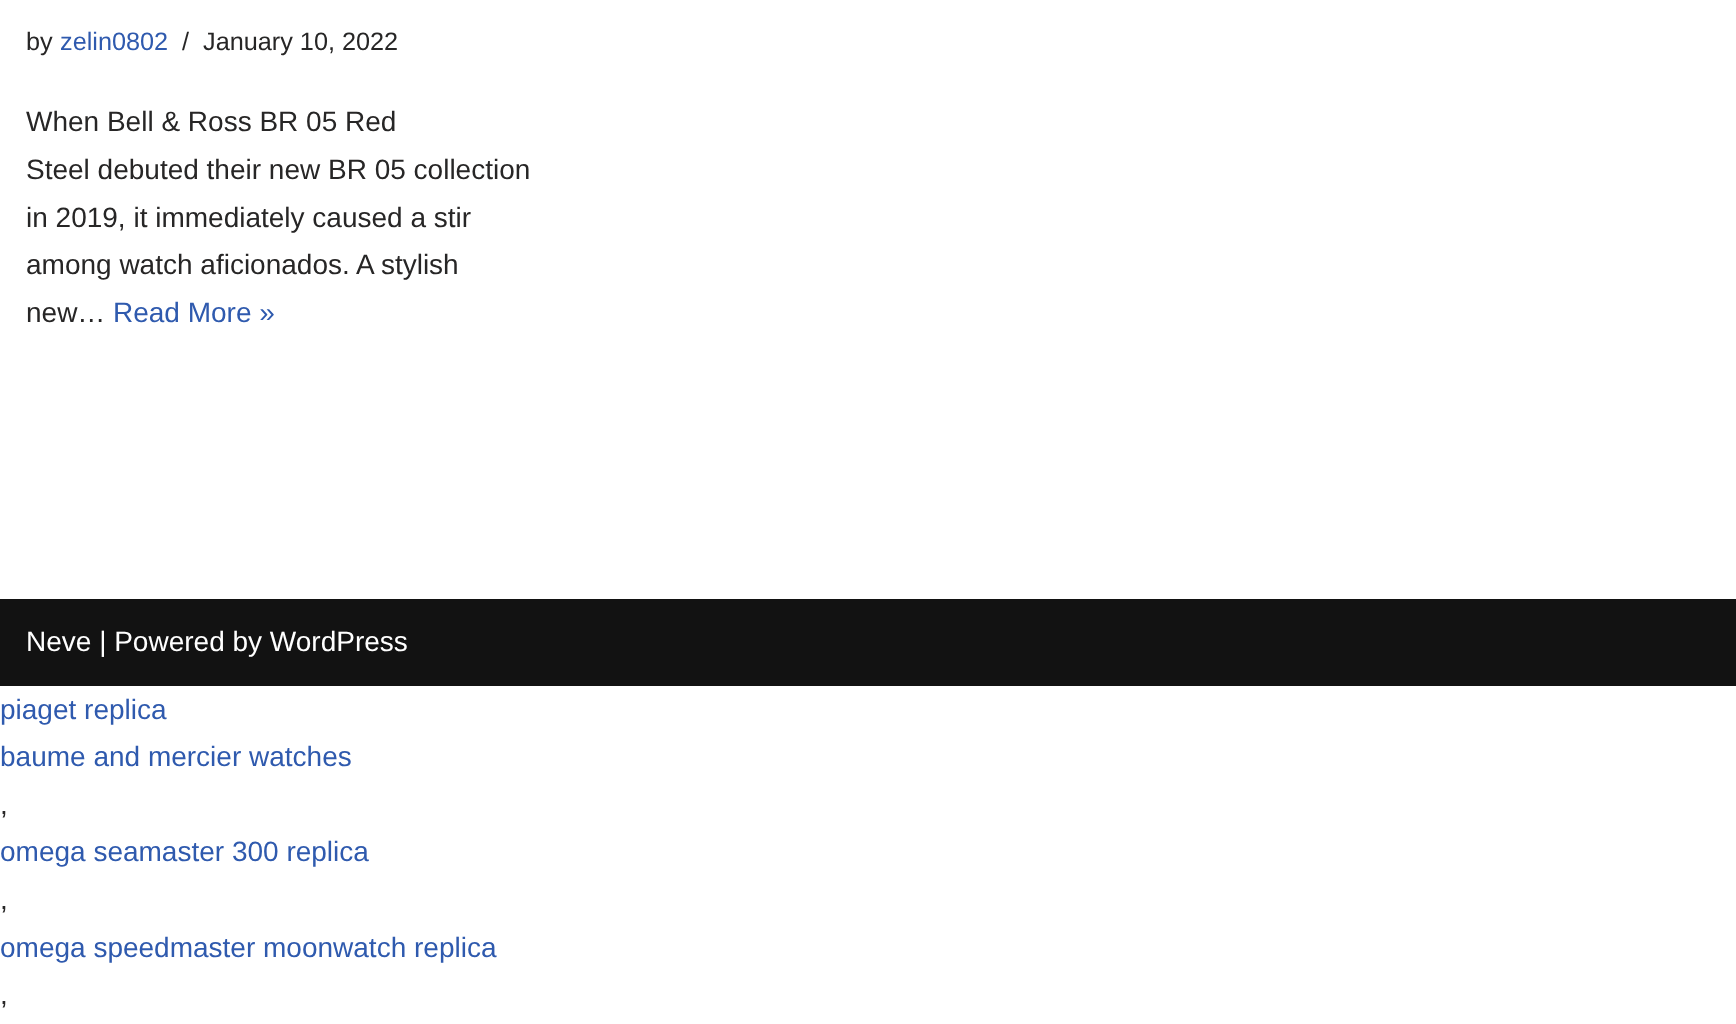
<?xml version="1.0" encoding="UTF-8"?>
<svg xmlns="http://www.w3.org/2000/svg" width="1736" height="1024">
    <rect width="100%" height="100%" fill="#FFFFFF"/>
    <text x="26" y="50" font-family="Liberation Sans" font-size="25.25" fill="#272626">by</text>
    <text x="60" y="50" font-family="Liberation Sans" font-size="25.25" fill="#2F5AAE">zelin0802</text>
    <text x="182" y="50" font-family="Liberation Sans" font-size="25.25" fill="#272626">/</text>
    <text x="203" y="50" font-family="Liberation Sans" font-size="25.25" fill="#272626">January 10, 2022</text>
    <text font-family="Liberation Sans" font-size="28" fill="#272626">
        <tspan x="26" y="131">When Bell &amp; Ross BR 05 Red</tspan>
        <tspan x="26" y="179">Steel debuted their new BR 05 collection</tspan>
        <tspan x="26" y="227">in 2019, it immediately caused a stir</tspan>
        <tspan x="26" y="274">among watch aficionados. A stylish</tspan>
        <tspan x="26" y="322">new…</tspan>
    </text>
    <text x="113" y="322" font-family="Liberation Sans" font-size="28" fill="#2F5AAE">Read More »</text>
    <rect x="0" y="599" width="1736" height="87" fill="#121212"/>
    <text x="26" y="651" font-family="Liberation Sans" font-size="28" fill="#FFFFFF">Neve | Powered by WordPress</text>
    <text font-family="Liberation Sans" font-size="28" fill="#2F5AAE">
        <tspan x="0" y="719">piaget replica</tspan>
        <tspan x="0" y="766">baume and mercier watches</tspan>
    </text>
    <text x="0" y="814" font-family="Liberation Sans" font-size="28" fill="#272626">,</text>
    <text x="0" y="861" font-family="Liberation Sans" font-size="28" fill="#2F5AAE">omega seamaster 300 replica</text>
    <text x="0" y="909" font-family="Liberation Sans" font-size="28" fill="#272626">,</text>
    <text x="0" y="957" font-family="Liberation Sans" font-size="28" fill="#2F5AAE">omega speedmaster moonwatch replica</text>
    <text x="0" y="1004" font-family="Liberation Sans" font-size="28" fill="#272626">,</text>
</svg>
